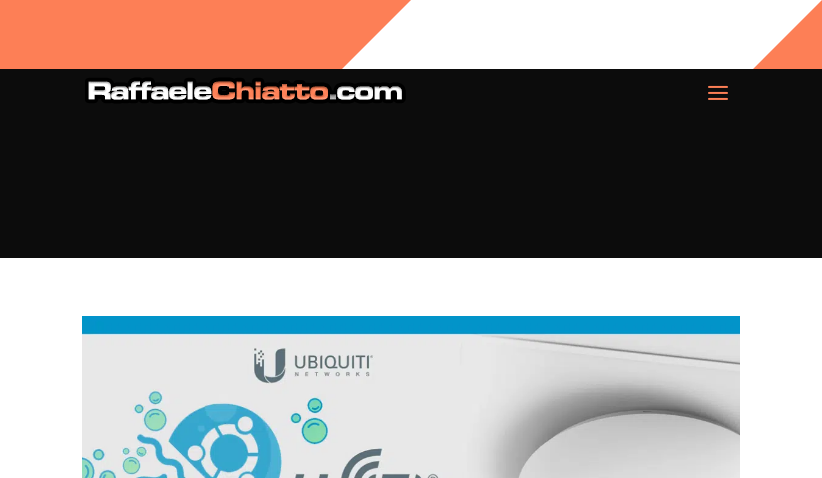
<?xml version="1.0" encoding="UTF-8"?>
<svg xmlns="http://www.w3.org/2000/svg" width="822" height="478">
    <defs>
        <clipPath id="clip1"><rect x="0" y="0" width="822" height="69"/></clipPath>
    </defs>
    <rect width="100%" height="100%" fill="#0C0C0C"/>
    <rect x="342" y="0" width="480" height="69" fill="#FFFFFF"/>
    <g clip-path="url(#clip1)">
        <path d="M 411 0 L 0 411 V 0 Z M 411 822 L 822 411 V 0 L 0 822 Z" fill="#FD7F56"/>
    </g>
    <image x="85" y="77" width="321" height="27" href="img_01.png"/>
    <image x="708" y="85" width="20" height="15" href="img_02.png"/>
    <rect x="0" y="258" width="822" height="220" fill="#FFFFFF"/>
    <image x="82" y="316" width="658" height="162" href="img_03.png"/>
</svg>
